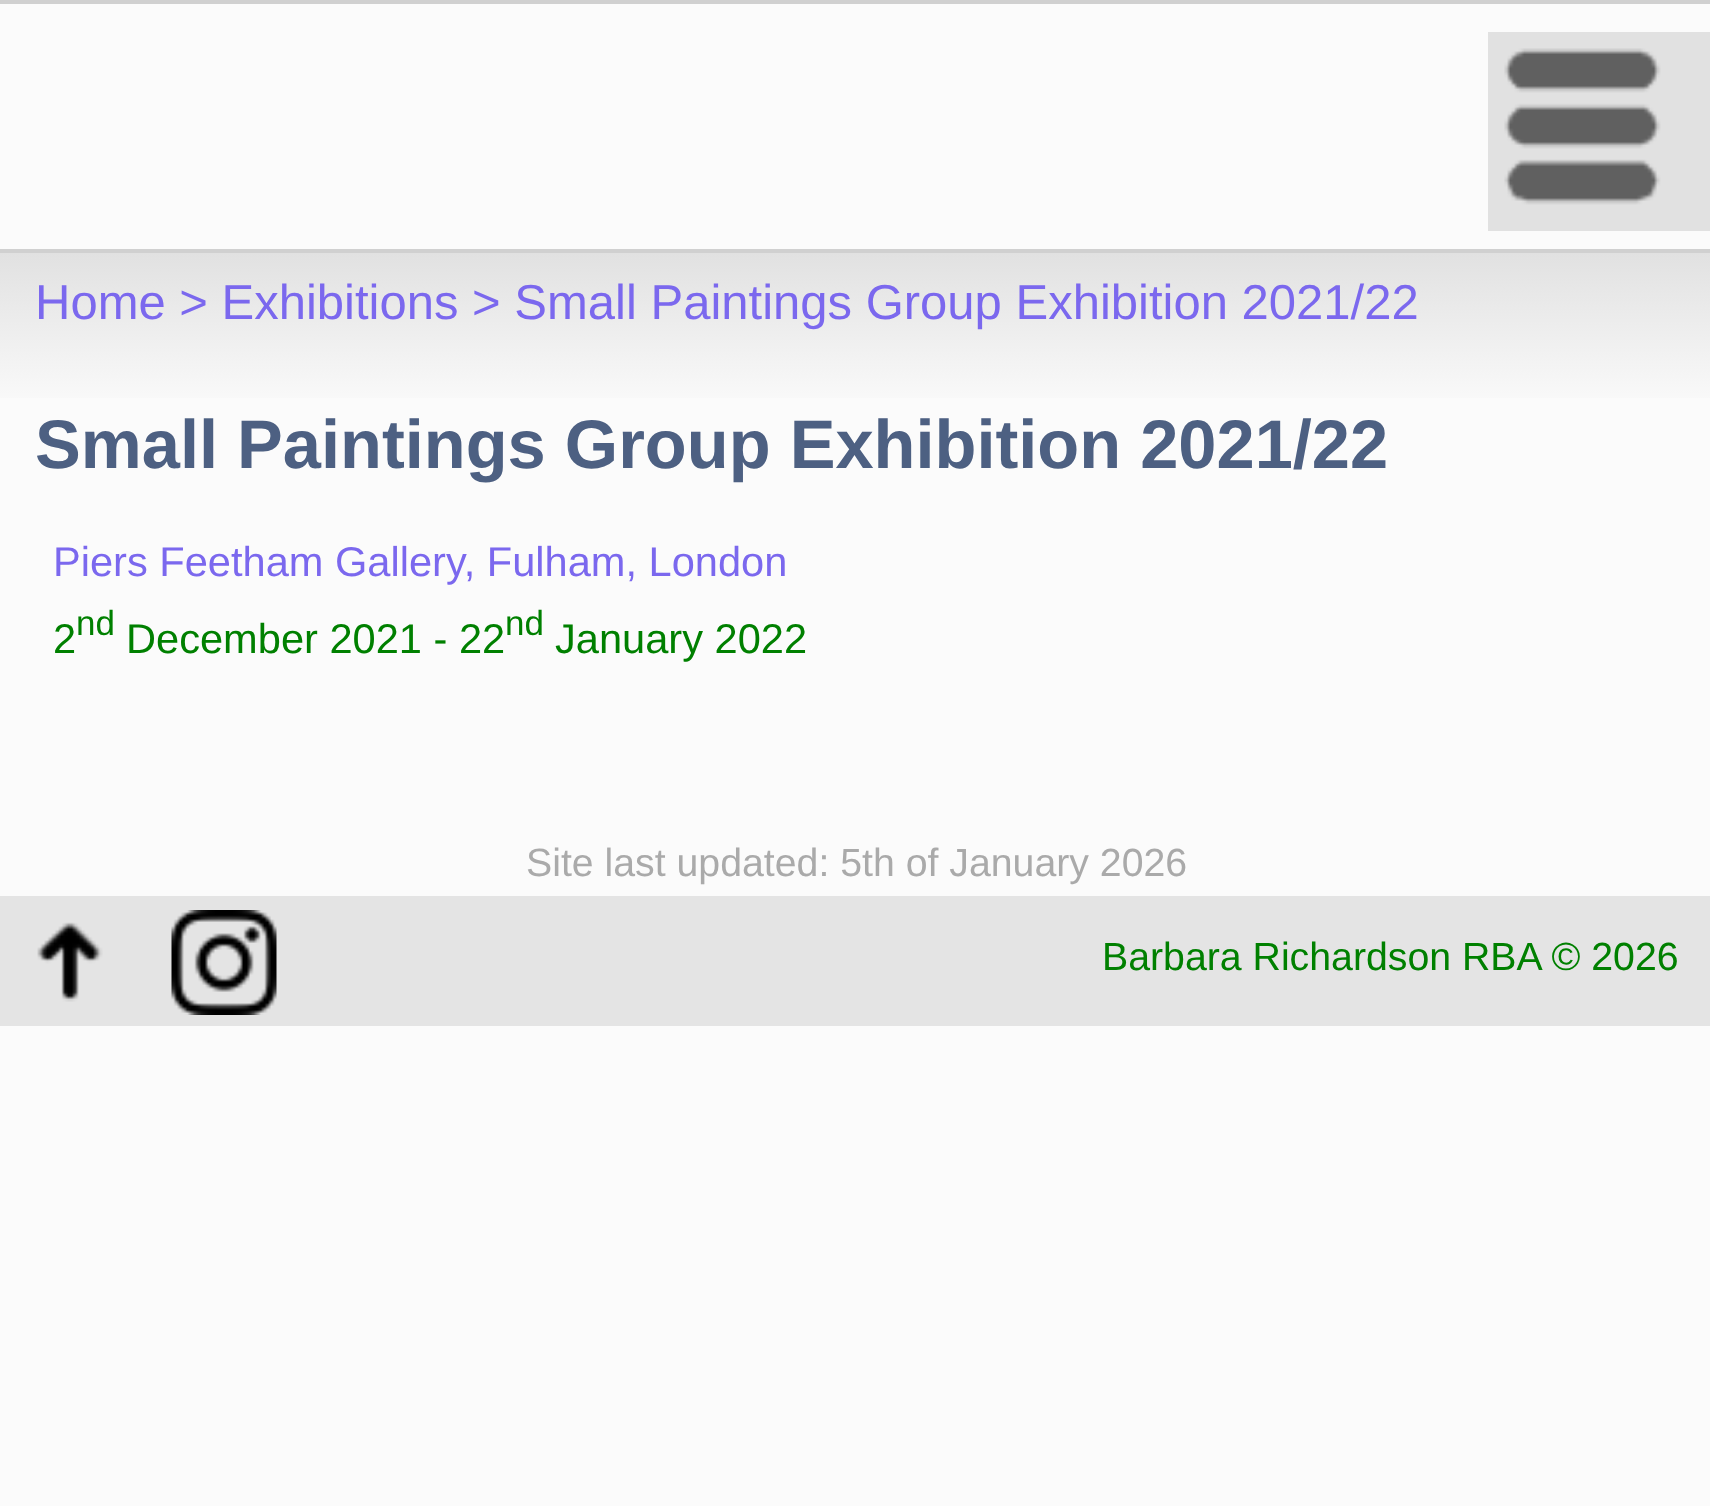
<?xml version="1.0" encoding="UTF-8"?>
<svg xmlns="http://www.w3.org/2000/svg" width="1710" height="1506">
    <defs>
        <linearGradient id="g1" gradientUnits="userSpaceOnUse" x1="873" y1="252" x2="873" y2="413"><stop offset="0" stop-color="#E1E1E1"/><stop offset="1" stop-color="#FBFBFB"/></linearGradient>
    </defs>
    <rect width="100%" height="100%" fill="#FBFBFB"/>
    <rect x="0" y="0" width="1710" height="4" fill="#D0D0D0"/>
    <rect x="0" y="249" width="1710" height="4" fill="#D0D0D0"/>
    <rect x="1488" y="32" width="222" height="199" fill="#E1E1E1"/>
    <image x="1504" y="48" width="157" height="157" href="img_01.png"/>
    <rect x="0" y="253" width="1710" height="145" fill="url(#g1)"/>
    <text x="35" y="319" font-family="Liberation Sans" font-size="49" fill="#7B68EE">Home &gt; Exhibitions &gt; Small Paintings Group Exhibition 2021/22</text>
    <text x="35" y="468" font-family="Liberation Sans" font-size="68.6" font-weight="700" fill="#4D6082">Small Paintings Group Exhibition 2021/22</text>
    <text x="53" y="576" font-family="Liberation Sans" font-size="41.6" fill="#7B68EE">Piers Feetham Gallery, Fulham, London</text>
    <text x="53" y="653" font-family="Liberation Sans" font-size="41.6" fill="#008000">2</text>
    <text x="76" y="635" font-family="Liberation Sans" font-size="35" fill="#008000">nd</text>
    <text x="126" y="653" font-family="Liberation Sans" font-size="41.6" fill="#008000">December 2021 - 22</text>
    <text x="505" y="635" font-family="Liberation Sans" font-size="35" fill="#008000">nd</text>
    <text x="555" y="653" font-family="Liberation Sans" font-size="41.6" fill="#008000">January 2022</text>
    <text x="526" y="876" font-family="Liberation Sans" font-size="39.25" fill="#AAAAAA">Site last updated: 5th of January 2026</text>
    <rect x="0" y="896" width="1710" height="130" fill="#E4E4E4"/>
    <image x="37" y="922" width="66" height="80" href="img_02.png"/>
    <image x="171" y="910" width="106" height="105" href="img_03.png"/>
    <text x="1102" y="970" font-family="Liberation Sans" font-size="39.25" fill="#008000">Barbara Richardson RBA © 2026</text>
</svg>
